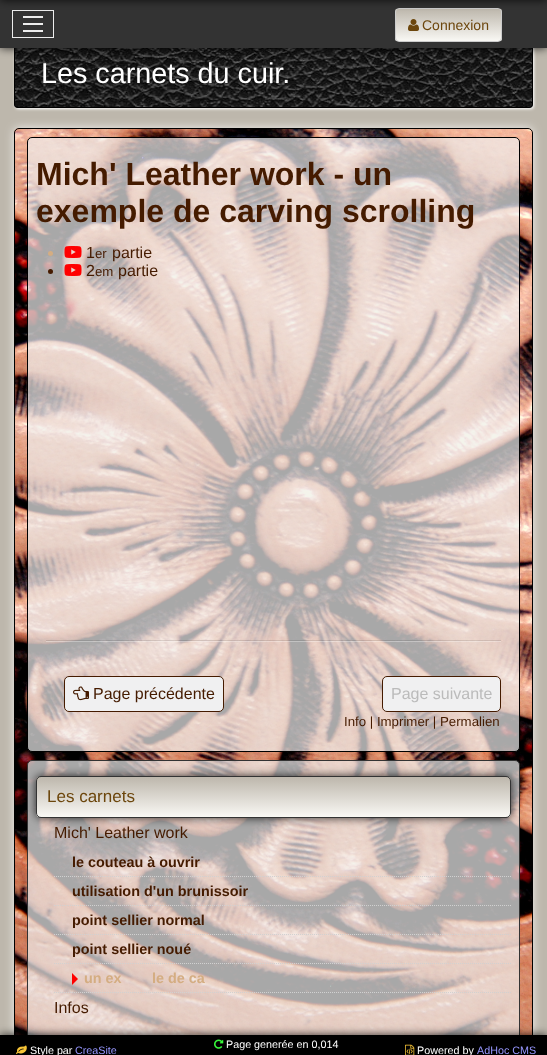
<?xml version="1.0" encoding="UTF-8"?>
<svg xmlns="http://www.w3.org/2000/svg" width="547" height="1055">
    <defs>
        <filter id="blur1" x="-50%" y="-200%" width="200%" height="500%"><feGaussianBlur stdDeviation="1.5"/></filter>
        <filter id="blur2" x="-50%" y="-200%" width="200%" height="500%"><feGaussianBlur stdDeviation="5"/></filter>
        <clipPath id="clip1"><rect x="395" y="8" width="107" height="34" rx="4"/></clipPath>
        <linearGradient id="g1" gradientUnits="userSpaceOnUse" x1="449" y1="9" x2="449" y2="41"><stop offset="0" stop-color="#BDB7AC"/><stop offset="1" stop-color="#F9F8F4"/></linearGradient>
        <clipPath id="clip2"><rect x="36" y="776" width="475" height="42" rx="5"/></clipPath>
        <linearGradient id="g2" gradientUnits="userSpaceOnUse" x1="274" y1="777" x2="274" y2="817"><stop offset="0" stop-color="#BDB7AC"/><stop offset="1" stop-color="#F9F8F4"/></linearGradient>
    </defs>
    <rect width="100%" height="100%" fill="#BDB7AC"/>
    <rect x="15" y="4" width="519" height="105" rx="4" fill="#FFFFFF" filter="url(#blur1)"/>
    <image x="14" y="48" width="519" height="60" href="img_01.png"/>
    <rect x="14.5" y="3.5" width="518" height="104" rx="3.5" fill="none" stroke="#000000"/>
    <rect x="0" y="0" width="547" height="48" fill="#000000" fill-opacity="0.8" filter="url(#blur2)"/>
    <rect x="0" y="0" width="547" height="48" fill="#333333"/>
    <rect x="12.5" y="10.5" width="41" height="27" fill="none" stroke="#EDEDED"/>
    <g clip-path="url(#clip1)">
        <rect x="395" y="9" width="107" height="32" fill="url(#g1)"/>
    </g>
    <rect x="395.5" y="8.5" width="106" height="33" rx="3.5" fill="none" stroke="#CCCCCC"/>
    <rect x="0" y="-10" width="547" height="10" fill="#000000" fill-opacity="0.8" filter="url(#blur2)"/>
    <rect x="23" y="16" width="20" height="2" fill="#EDEDED"/>
    <rect x="23" y="23" width="20" height="2" fill="#EDEDED"/>
    <rect x="23" y="30" width="20" height="2" fill="#EDEDED"/>
    <image x="408" y="19" width="11" height="12" href="img_02.png"/>
    <text x="422" y="30" font-family="Liberation Sans" font-size="14" fill="#6C460C">Connexion</text>
    <text x="41" y="83" font-family="Liberation Sans" font-size="28.75" fill="#FFFFFF">Les carnets du cuir.</text>
    <rect x="14" y="128" width="519" height="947" rx="5" fill="#FFFFFF" fill-opacity="0.8" filter="url(#blur2)"/>
    <image x="14" y="128" width="519" height="907" href="img_03.png"/>
    <rect x="14.5" y="128.5" width="518" height="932" rx="4.5" fill="none" stroke="#000000"/>
    <rect x="27.5" y="137.5" width="492" height="614" rx="4.5" fill="#F0F0F0" fill-opacity="0.7" stroke="#000000"/>
    <text font-family="Liberation Sans" font-size="32" font-weight="700" fill="#451B00">
        <tspan x="36" y="185">Mich' Leather work - un</tspan>
        <tspan x="36" y="222">exemple de carving scrolling</tspan>
    </text>
    <circle cx="50.5" cy="253.5" r="2.5" fill="#D4AD82"/>
    <image x="64" y="246" width="18" height="12" href="img_04.png"/>
    <text x="86" y="258" font-family="Liberation Sans" font-size="16" fill="#451B00">1</text>
    <text x="95" y="258" font-family="Liberation Sans" font-size="13.25" fill="#451B00">er</text>
    <text x="112" y="258" font-family="Liberation Sans" font-size="16" fill="#451B00">partie</text>
    <circle cx="50.5" cy="271.5" r="2.5" fill="#451B00"/>
    <image x="64" y="264" width="18" height="12" href="img_05.png"/>
    <text x="86" y="276" font-family="Liberation Sans" font-size="16" fill="#451B00">2</text>
    <text x="95" y="276" font-family="Liberation Sans" font-size="13.25" fill="#451B00">em</text>
    <text x="118" y="276" font-family="Liberation Sans" font-size="16" fill="#451B00">partie</text>
    <rect x="46" y="640" width="455" height="1" fill="#000000" fill-opacity="0.1"/>
    <rect x="46" y="641" width="455" height="1" fill="#FFFFFF" fill-opacity="0.3"/>
    <rect x="64.5" y="676.5" width="159" height="35" rx="4.5" fill="#F0F0F1" stroke="#451B00"/>
    <image x="73" y="686" width="16" height="15" href="img_06.png"/>
    <text x="93" y="699" font-family="Liberation Sans" font-size="16" fill="#451B00">Page précédente</text>
    <rect x="382.5" y="676.5" width="118" height="35" rx="4.5" fill="#F0F0F1" stroke="#451B00"/>
    <text x="391" y="699" font-family="Liberation Sans" font-size="16" fill="#BBBBBB">Page suivante</text>
    <text x="344" y="726" font-family="Liberation Sans" font-size="13.25" fill="#451B00">Info | Imprimer | Permalien</text>
    <rect x="27.5" y="760.5" width="492" height="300" rx="4.5" fill="#F0F0F0" fill-opacity="0.7" stroke="#333333"/>
    <rect x="36" y="776" width="475" height="42" rx="5" fill="#000000" fill-opacity="0.8" filter="url(#blur2)"/>
    <g clip-path="url(#clip2)">
        <rect x="36" y="777" width="475" height="40" fill="url(#g2)"/>
    </g>
    <rect x="36.5" y="776.5" width="474" height="41" rx="4.5" fill="none" stroke="#333333"/>
    <text x="47" y="802" font-family="Liberation Sans" font-size="17" fill="#6C460C">Les carnets</text>
    <text x="54" y="838" font-family="Liberation Sans" font-size="16" fill="#451B00">Mich' Leather work</text>
    <path d="M 54 876.5 H 511" fill="none" stroke="#D1D1D1" stroke-dasharray="1 1"/>
    <text x="72" y="867" font-family="Liberation Sans" font-size="14.4" font-weight="700" fill="#451B00">le couteau à ouvrir</text>
    <path d="M 54 905.5 H 511" fill="none" stroke="#D1D1D1" stroke-dasharray="1 1"/>
    <text x="72" y="896" font-family="Liberation Sans" font-size="14.4" font-weight="700" fill="#451B00">utilisation d'un brunissoir</text>
    <path d="M 54 934.5 H 511" fill="none" stroke="#D1D1D1" stroke-dasharray="1 1"/>
    <text x="72" y="925" font-family="Liberation Sans" font-size="14.4" font-weight="700" fill="#451B00">point sellier normal</text>
    <path d="M 54 963.5 H 511" fill="none" stroke="#D1D1D1" stroke-dasharray="1 1"/>
    <text x="72" y="954" font-family="Liberation Sans" font-size="14.4" font-weight="700" fill="#451B00">point sellier noué</text>
    <path d="M 54 992.5 H 511" fill="none" stroke="#D1D1D1" stroke-dasharray="1 1"/>
    <path d="M 72 985 V 973 L 78 979 Z" fill="#FF0000"/>
    <text x="84" y="983" font-family="Liberation Sans" font-size="14.4" font-weight="700" fill="#D4AD82">un ex</text>
    <text x="152" y="983" font-family="Liberation Sans" font-size="14.4" font-weight="700" fill="#D4AD82">le de ca</text>
    <text x="54" y="1013" font-family="Liberation Sans" font-size="16" fill="#451B00">Infos</text>
    <rect x="0" y="1035" width="547" height="20" fill="#000000" fill-opacity="0.8" filter="url(#blur2)"/>
    <rect x="0" y="1035" width="547" height="20" fill="#000000"/>
    <image x="16" y="1045" width="11" height="9" href="img_07.png"/>
    <text x="30" y="1054" font-family="Liberation Sans" font-size="10.75" fill="#FFFFFF">Style par</text>
    <text x="75" y="1054" font-family="Liberation Sans" font-size="10.75" fill="#9797FF">CreaSite</text>
    <image x="214" y="1039" width="10" height="10" href="img_08.png"/>
    <text x="226" y="1048" font-family="Liberation Sans" font-size="10.75" fill="#FFFFFF">Page generée en 0,014</text>
    <image x="405" y="1044" width="10" height="11" href="img_09.png"/>
    <text x="417" y="1054" font-family="Liberation Sans" font-size="10.75" fill="#FFFFFF">Powered by</text>
    <text x="477" y="1054" font-family="Liberation Sans" font-size="10.75" fill="#9797FF">AdHoc CMS</text>
</svg>
